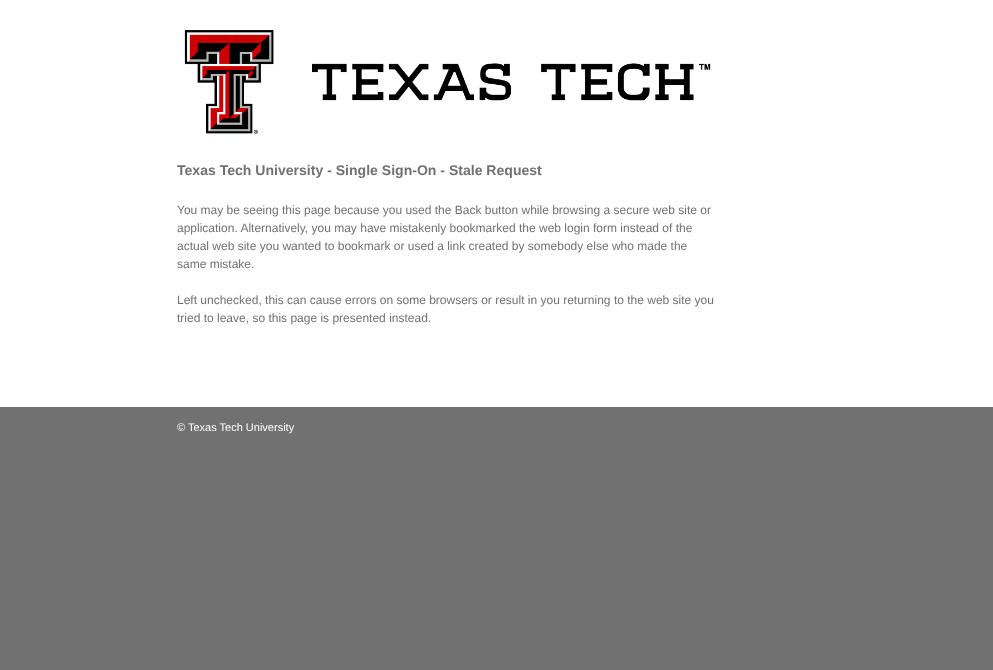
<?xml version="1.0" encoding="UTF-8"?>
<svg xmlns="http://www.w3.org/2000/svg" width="993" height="670">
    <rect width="100%" height="100%" fill="#717171"/>
    <rect x="0" y="0" width="993" height="407" fill="#FFFFFF"/>
    <image x="184" y="30" width="527" height="104" href="img_01.png"/>
    <text x="177" y="175" font-family="Liberation Sans" font-size="14.05" font-weight="700" fill="#717171">Texas Tech University - Single Sign-On - Stale Request</text>
    <text font-family="Liberation Sans" font-size="12" fill="#717171">
        <tspan x="177" y="214">You may be seeing this page because you used the Back button while browsing a secure web site or</tspan>
        <tspan x="177" y="232">application. Alternatively, you may have mistakenly bookmarked the web login form instead of the</tspan>
        <tspan x="177" y="250">actual web site you wanted to bookmark or used a link created by somebody else who made the</tspan>
        <tspan x="177" y="268">same mistake.</tspan>
    </text>
    <text font-family="Liberation Sans" font-size="12" fill="#717171">
        <tspan x="177" y="304">Left unchecked, this can cause errors on some browsers or result in you returning to the web site you</tspan>
        <tspan x="177" y="322">tried to leave, so this page is presented instead.</tspan>
    </text>
    <text x="177" y="431" font-family="Liberation Sans" font-size="11" fill="#FFFFFF">© Texas Tech University</text>
</svg>
